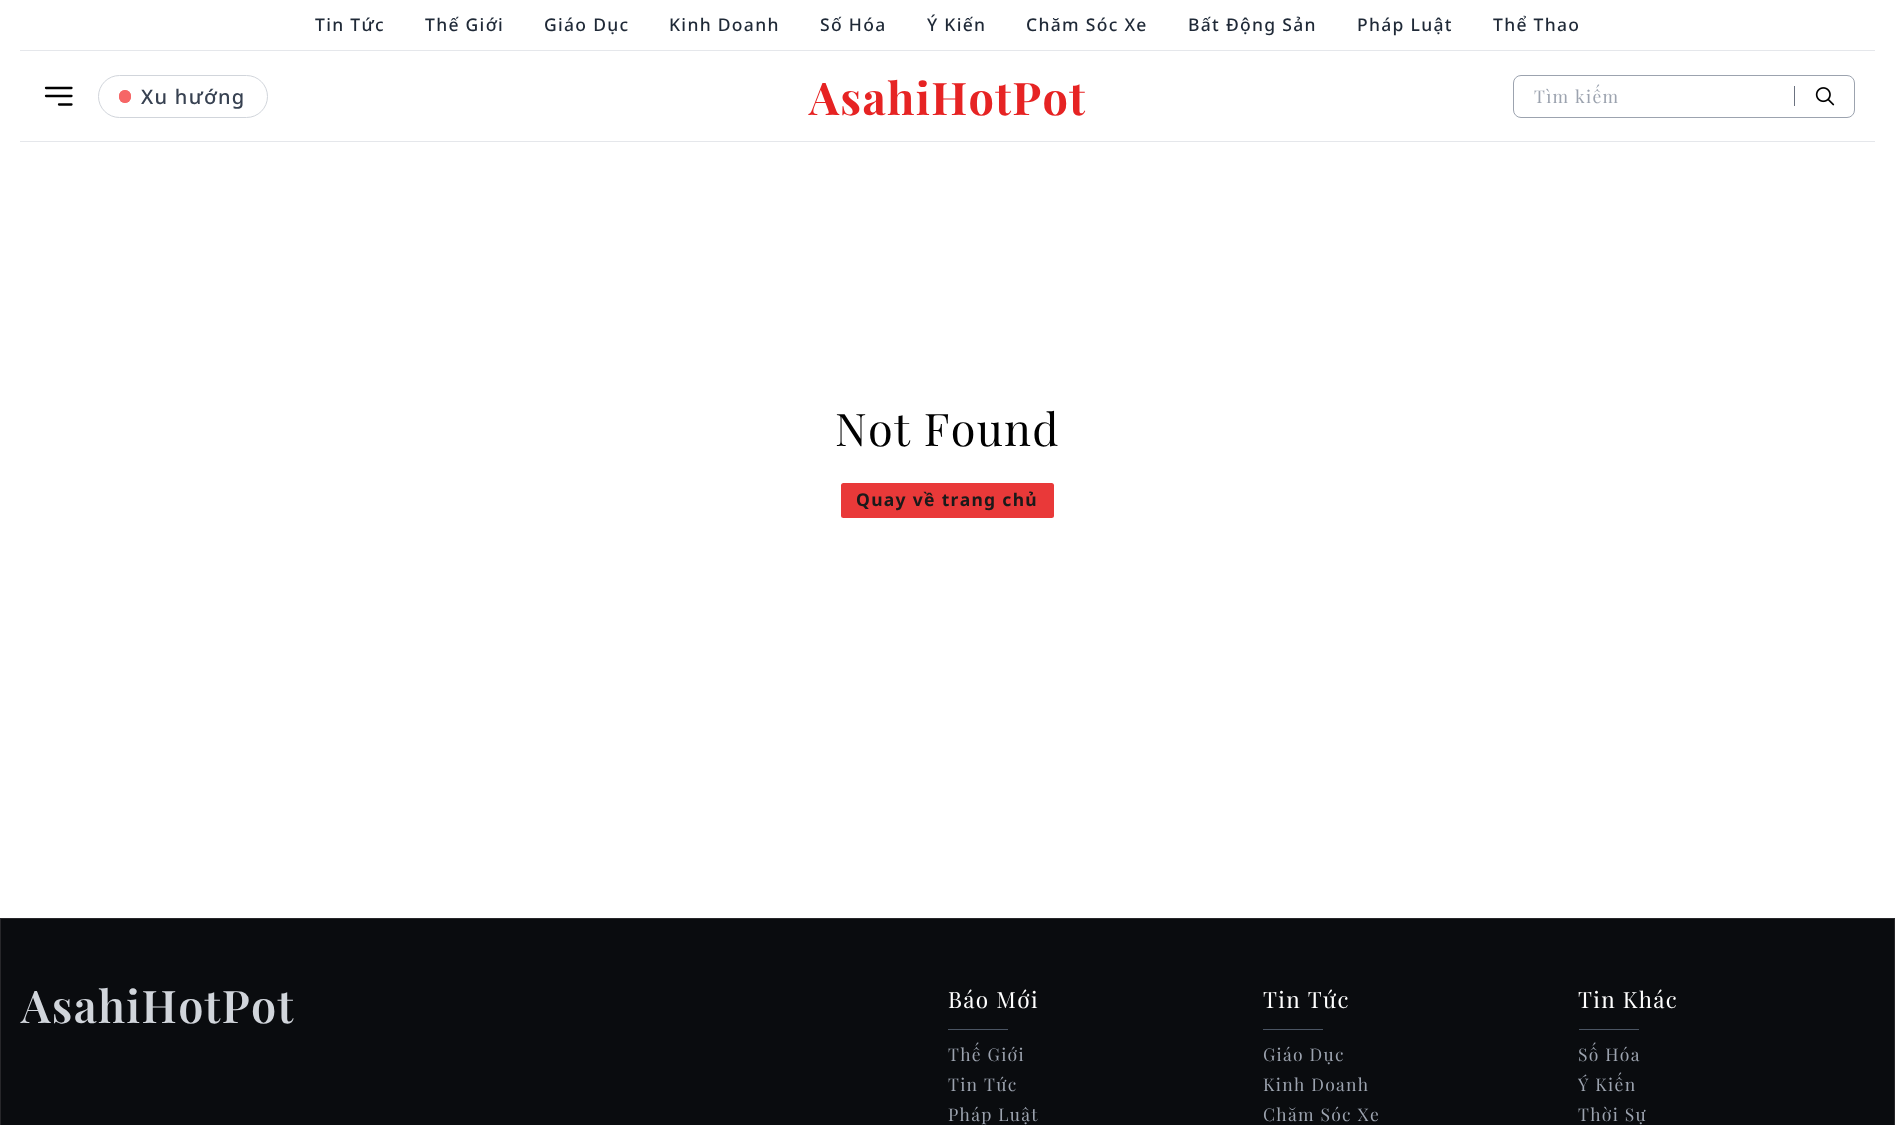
<?xml version="1.0" encoding="UTF-8"?>
<svg xmlns="http://www.w3.org/2000/svg" width="1895" height="1125">
    <style>*{font-kerning:none!important;font-variant-ligatures:none!important}</style>
    <rect width="100%" height="100%" fill="#FFFFFF"/>
    <rect x="20" y="50" width="1855" height="1" fill="#E5E7EB"/>
    <text x="315" y="31" font-family="Noto Sans" font-size="17.5" font-weight="500" letter-spacing="1.3" fill="#1F2937">Tin Tức</text>
    <text x="425" y="31" font-family="Noto Sans" font-size="17.5" font-weight="500" letter-spacing="1.3" fill="#1F2937">Thế Giới</text>
    <text x="544" y="31" font-family="Noto Sans" font-size="17.5" font-weight="500" letter-spacing="1.3" fill="#1F2937">Giáo Dục</text>
    <text x="669" y="31" font-family="Noto Sans" font-size="17.5" font-weight="500" letter-spacing="1.3" fill="#1F2937">Kinh Doanh</text>
    <text x="820" y="31" font-family="Noto Sans" font-size="17.5" font-weight="500" letter-spacing="1.3" fill="#1F2937">Số Hóa</text>
    <text x="927" y="31" font-family="Noto Sans" font-size="17.5" font-weight="500" letter-spacing="1.3" fill="#1F2937">Ý Kiến</text>
    <text x="1026" y="31" font-family="Noto Sans" font-size="17.5" font-weight="500" letter-spacing="1.3" fill="#1F2937">Chăm Sóc Xe</text>
    <text x="1188" y="31" font-family="Noto Sans" font-size="17.5" font-weight="500" letter-spacing="1.3" fill="#1F2937">Bất Động Sản</text>
    <text x="1357" y="31" font-family="Noto Sans" font-size="17.5" font-weight="500" letter-spacing="1.3" fill="#1F2937">Pháp Luật</text>
    <text x="1493" y="31" font-family="Noto Sans" font-size="17.5" font-weight="500" letter-spacing="1.3" fill="#1F2937">Thể Thao</text>
    <rect x="20" y="141" width="1855" height="1" fill="#E5E7EB"/>
    <path d="M 46 88 H 71.5 M 46 96 H 71.5 M 59 104.5 H 71.5" fill="none" stroke="#000000" stroke-width="2.3" stroke-linecap="round" stroke-linejoin="round"/>
    <rect x="98.5" y="75.5" width="169" height="42" rx="21" fill="none" stroke="#D1D5DB"/>
    <rect x="119" y="90" width="12" height="13" rx="6" fill="#EF4444"/>
    <rect x="119" y="90" width="12" height="13" rx="6" fill="#F87171" fill-opacity="0.75"/>
    <text x="141" y="104" font-family="Noto Sans" font-size="20" font-weight="500" letter-spacing="1.3" fill="#374151">Xu hướng</text>
    <text x="809" y="115" font-family="Playfair Display" font-size="45" font-weight="700" letter-spacing="1.3" fill="#E62323">AsahiHotPot</text>
    <rect x="1513.5" y="75.5" width="341" height="42" rx="7.5" fill="none" stroke="#9CA3AF"/>
    <text x="1534" y="103" font-family="Playfair Display" font-size="17.5" letter-spacing="1.3" fill="#9CA3AF">Tìm kiếm</text>
    <rect x="1794" y="86" width="1" height="20" fill="#6B7280"/>
    <image x="1815" y="87" width="20" height="19" href="img_01.png"/>
    <text x="835" y="446" font-family="Playfair Display" font-size="45" letter-spacing="1.3" fill="#000000">Not Found</text>
    <rect x="841" y="483" width="213" height="35" rx="2.5" fill="#E93939"/>
    <text x="856" y="506" font-family="Noto Sans" font-size="17.5" font-weight="700" letter-spacing="1.3" fill="#1A1A1A">Quay về trang chủ</text>
    <rect x="0.5" y="918.5" width="1894" height="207" fill="#0A0C0F" stroke="#27272A"/>
    <text x="21" y="1023" font-family="Playfair Display" font-size="45" font-weight="600" letter-spacing="1.3" fill="#D1D5DB">AsahiHotPot</text>
    <text x="948" y="1008" font-family="Playfair Display" font-size="22.5" letter-spacing="1.3" fill="#FFFFFF">Báo Mới</text>
    <rect x="948" y="1029" width="60" height="1" fill="#4B5563"/>
    <text font-family="Playfair Display" font-size="17.5" letter-spacing="1.3" fill="#9CA3AF">
        <tspan x="948" y="1061">Thế Giới</tspan>
        <tspan x="948" y="1091">Tin Tức</tspan>
        <tspan x="948" y="1121">Pháp Luật</tspan>
    </text>
    <text x="1263" y="1008" font-family="Playfair Display" font-size="22.5" letter-spacing="1.3" fill="#FFFFFF">Tin Tức</text>
    <rect x="1263" y="1029" width="60" height="1" fill="#4B5563"/>
    <text font-family="Playfair Display" font-size="17.5" letter-spacing="1.3" fill="#9CA3AF">
        <tspan x="1263" y="1061">Giáo Dục</tspan>
        <tspan x="1263" y="1091">Kinh Doanh</tspan>
        <tspan x="1263" y="1121">Chăm Sóc Xe</tspan>
    </text>
    <text x="1578" y="1008" font-family="Playfair Display" font-size="22.5" letter-spacing="1.3" fill="#FFFFFF">Tin Khác</text>
    <rect x="1579" y="1029" width="60" height="1" fill="#4B5563"/>
    <text font-family="Playfair Display" font-size="17.5" letter-spacing="1.3" fill="#9CA3AF">
        <tspan x="1578" y="1061">Số Hóa</tspan>
        <tspan x="1578" y="1091">Ý Kiến</tspan>
        <tspan x="1578" y="1121">Thời Sự</tspan>
    </text>
</svg>
